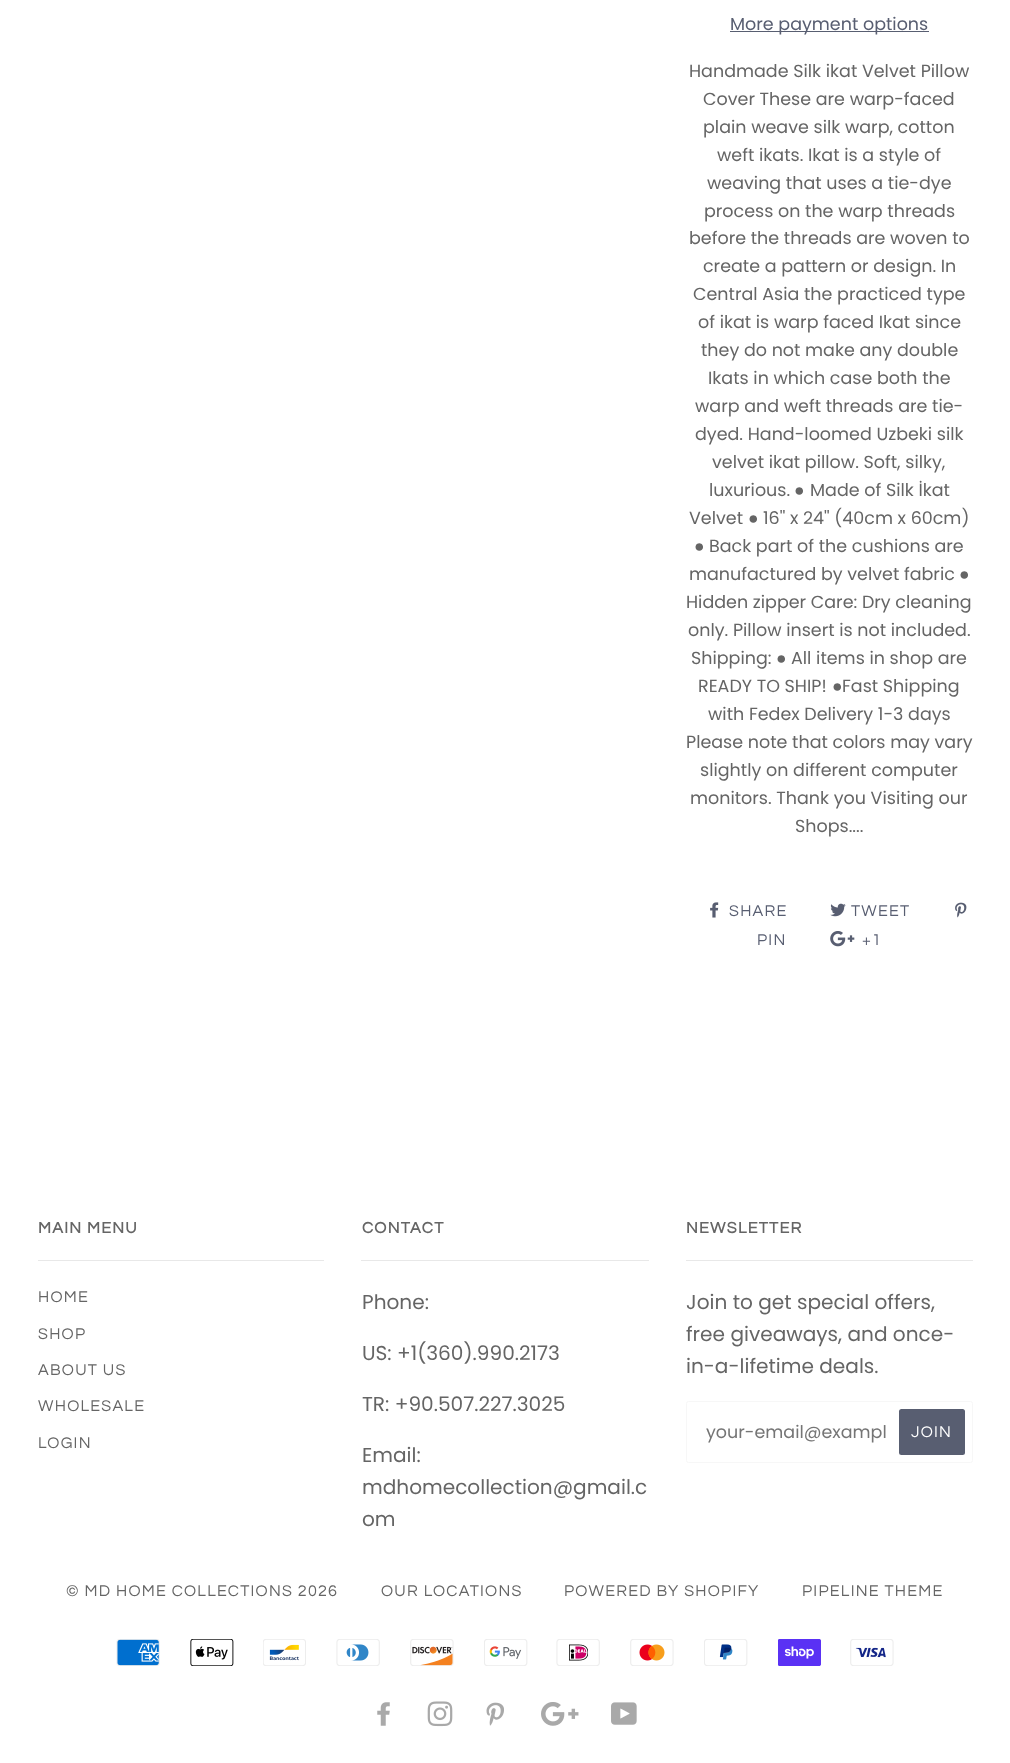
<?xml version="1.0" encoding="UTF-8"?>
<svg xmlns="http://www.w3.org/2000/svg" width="1010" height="1763">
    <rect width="100%" height="100%" fill="#FFFFFF"/>
    <rect x="730" y="31" width="199" height="1" fill="#585E71"/>
    <text x="730" y="30" font-family="Poppins" font-size="17.5" fill="#585E71">More payment options</text>
    <text x="689" y="77" font-family="Poppins" font-size="17.5" fill="#656565">Handmade Silk ikat Velvet Pillow</text>
    <text font-family="Poppins" font-size="17.5" fill="#656565">
        <tspan x="703" y="105">Cover These are warp-faced</tspan>
        <tspan x="703" y="133">plain weave silk warp, cotton</tspan>
    </text>
    <text x="717" y="161" font-family="Poppins" font-size="17.5" fill="#656565">weft ikats. Ikat is a style of</text>
    <text x="707" y="189" font-family="Poppins" font-size="17.5" fill="#656565">weaving that uses a tie-dye</text>
    <text x="704" y="217" font-family="Poppins" font-size="17.5" fill="#656565">process on the warp threads</text>
    <text x="689" y="244" font-family="Poppins" font-size="17.5" fill="#656565">before the threads are woven to</text>
    <text x="703" y="272" font-family="Poppins" font-size="17.5" fill="#656565">create a pattern or design. In</text>
    <text x="693" y="300" font-family="Poppins" font-size="17.5" fill="#656565">Central Asia the practiced type</text>
    <text x="698" y="328" font-family="Poppins" font-size="17.5" fill="#656565">of ikat is warp faced Ikat since</text>
    <text x="701" y="356" font-family="Poppins" font-size="17.5" fill="#656565">they do not make any double</text>
    <text x="708" y="384" font-family="Poppins" font-size="17.5" fill="#656565">Ikats in which case both the</text>
    <text font-family="Poppins" font-size="17.5" fill="#656565">
        <tspan x="695" y="412">warp and weft threads are tie-</tspan>
        <tspan x="695" y="440">dyed. Hand-loomed Uzbeki silk</tspan>
    </text>
    <text x="712" y="468" font-family="Poppins" font-size="17.5" fill="#656565">velvet ikat pillow. Soft, silky,</text>
    <text x="709" y="496" font-family="Poppins" font-size="17.5" fill="#656565">luxurious.</text>
    <text x="794" y="496" font-family="Liberation Sans" font-size="17.5" fill="#656565">●</text>
    <text x="810" y="496" font-family="Poppins" font-size="17.5" fill="#656565">Made of Silk İkat</text>
    <text x="689" y="524" font-family="Poppins" font-size="17.5" fill="#656565">Velvet</text>
    <text x="748" y="524" font-family="Liberation Sans" font-size="17.5" fill="#656565">●</text>
    <text x="763" y="524" font-family="Poppins" font-size="17.5" fill="#656565">16'' x 24'' (40cm x 60cm)</text>
    <text x="694" y="552" font-family="Liberation Sans" font-size="17.5" fill="#656565">●</text>
    <text x="709" y="552" font-family="Poppins" font-size="17.5" fill="#656565">Back part of the cushions are</text>
    <text x="689" y="580" font-family="Poppins" font-size="17.5" fill="#656565">manufactured by velvet fabric</text>
    <text x="959" y="580" font-family="Liberation Sans" font-size="17.5" fill="#656565">●</text>
    <text x="686" y="608" font-family="Poppins" font-size="17.5" fill="#656565">Hidden zipper Care: Dry cleaning</text>
    <text x="688" y="636" font-family="Poppins" font-size="17.5" fill="#656565">only. Pillow insert is not included.</text>
    <text x="691" y="664" font-family="Poppins" font-size="17.5" fill="#656565">Shipping:</text>
    <text x="776" y="664" font-family="Liberation Sans" font-size="17.5" fill="#656565">●</text>
    <text x="791" y="664" font-family="Poppins" font-size="17.5" fill="#656565">All items in shop are</text>
    <text x="698" y="692" font-family="Poppins" font-size="17.5" fill="#656565">READY TO SHIP!</text>
    <text x="832" y="692" font-family="Liberation Sans" font-size="17.5" fill="#656565">●</text>
    <text x="842" y="692" font-family="Poppins" font-size="17.5" fill="#656565">Fast Shipping</text>
    <text x="708" y="720" font-family="Poppins" font-size="17.5" fill="#656565">with Fedex Delivery 1-3 days</text>
    <text x="686" y="748" font-family="Poppins" font-size="17.5" fill="#656565">Please note that colors may vary</text>
    <text x="700" y="776" font-family="Poppins" font-size="17.5" fill="#656565">slightly on different computer</text>
    <text x="690" y="804" font-family="Poppins" font-size="17.5" fill="#656565">monitors. Thank you Visiting our</text>
    <text x="795" y="832" font-family="Poppins" font-size="17.5" fill="#656565">Shops....</text>
    <image x="710" y="902" width="9" height="16" href="img_01.png"/>
    <text x="729" y="916" font-family="Questrial" font-size="16.1" letter-spacing="1.25" fill="#585E71">SHARE</text>
    <image x="830" y="903" width="16" height="14" href="img_02.png"/>
    <text x="851" y="916" font-family="Questrial" font-size="16.1" letter-spacing="1.25" fill="#585E71">TWEET</text>
    <image x="955" y="902" width="12" height="16" href="img_03.png"/>
    <text x="757" y="945" font-family="Questrial" font-size="16.1" letter-spacing="1.25" fill="#585E71">PIN</text>
    <image x="830" y="931" width="25" height="16" href="img_04.png"/>
    <text x="862" y="945" font-family="Questrial" font-size="16.1" letter-spacing="1.25" fill="#585E71">+1</text>
    <text x="38" y="1233" font-family="Questrial" font-size="16.1" font-weight="700" letter-spacing="1.25" fill="#656565">MAIN MENU</text>
    <rect x="38" y="1260" width="286" height="1" fill="#E8E8E8"/>
    <text x="38" y="1302" font-family="Questrial" font-size="16.1" letter-spacing="1.25" fill="#656565">HOME</text>
    <text x="38" y="1339" font-family="Questrial" font-size="16.1" letter-spacing="1.25" fill="#656565">SHOP</text>
    <text x="38" y="1375" font-family="Questrial" font-size="16.1" letter-spacing="1.25" fill="#656565">ABOUT US</text>
    <text x="38" y="1411" font-family="Questrial" font-size="16.1" letter-spacing="1.25" fill="#656565">WHOLESALE</text>
    <text x="38" y="1448" font-family="Questrial" font-size="16.1" letter-spacing="1.25" fill="#656565">LOGIN</text>
    <text x="362" y="1233" font-family="Questrial" font-size="16.1" font-weight="700" letter-spacing="1.25" fill="#656565">CONTACT</text>
    <rect x="361" y="1260" width="288" height="1" fill="#E8E8E8"/>
    <text x="362" y="1309" font-family="Poppins" font-size="20.1" fill="#656565">Phone:</text>
    <text x="362" y="1360" font-family="Poppins" font-size="20.1" fill="#656565">US: +1(360).990.2173</text>
    <text x="362" y="1411" font-family="Poppins" font-size="20.1" fill="#656565">TR: +90.507.227.3025</text>
    <text font-family="Poppins" font-size="20.1" fill="#656565">
        <tspan x="362" y="1462">Email:</tspan>
        <tspan x="362" y="1494">mdhomecollection@gmail.c</tspan>
        <tspan x="362" y="1526">om</tspan>
    </text>
    <text x="686" y="1233" font-family="Questrial" font-size="16.1" font-weight="700" letter-spacing="1.25" fill="#656565">NEWSLETTER</text>
    <rect x="686" y="1260" width="287" height="1" fill="#E8E8E8"/>
    <text font-family="Poppins" font-size="20.1" fill="#656565">
        <tspan x="686" y="1309">Join to get special offers,</tspan>
        <tspan x="686" y="1341">free giveaways, and once-</tspan>
        <tspan x="686" y="1373">in-a-lifetime deals.</tspan>
    </text>
    <rect x="686.5" y="1401.5" width="286" height="61" rx="2" fill="none" stroke="#F7F7F7"/>
    <text x="706" y="1438" font-family="Poppins" font-size="17.5" fill="#757575">your-email@exampl</text>
    <rect x="899" y="1409" width="66" height="46" rx="2.5" fill="#585E71"/>
    <text x="911" y="1437" font-family="Questrial" font-size="16.1" letter-spacing="1.25" fill="#FFFFFF">JOIN</text>
    <text x="66" y="1596" font-family="Questrial" font-size="16.1" letter-spacing="1.25" fill="#656565">© MD HOME COLLECTIONS 2026</text>
    <text x="381" y="1596" font-family="Questrial" font-size="16.1" letter-spacing="1.25" fill="#656565">OUR LOCATIONS</text>
    <text x="564" y="1596" font-family="Questrial" font-size="16.1" letter-spacing="1.25" fill="#656565">POWERED BY SHOPIFY</text>
    <text x="802" y="1596" font-family="Questrial" font-size="16.1" letter-spacing="1.25" fill="#656565">PIPELINE THEME</text>
    <image x="116" y="1639" width="44" height="27" href="img_05.png"/>
    <image x="190" y="1639" width="44" height="27" href="img_06.png"/>
    <image x="263" y="1639" width="43" height="27" href="img_07.png"/>
    <image x="336" y="1639" width="44" height="27" href="img_08.png"/>
    <image x="410" y="1639" width="44" height="27" href="img_09.png"/>
    <image x="484" y="1639" width="44" height="27" href="img_10.png"/>
    <image x="556" y="1639" width="44" height="27" href="img_11.png"/>
    <image x="630" y="1639" width="44" height="27" href="img_12.png"/>
    <image x="704" y="1639" width="44" height="27" href="img_13.png"/>
    <image x="778" y="1639" width="43" height="27" href="img_14.png"/>
    <image x="850" y="1639" width="44" height="27" href="img_15.png"/>
    <image x="377" y="1702" width="13" height="24" href="img_16.png"/>
    <image x="427" y="1701" width="26" height="26" href="img_17.png"/>
    <image x="486" y="1702" width="18" height="24" href="img_18.png"/>
    <image x="541" y="1702" width="38" height="24" href="img_19.png"/>
    <image x="611" y="1702" width="26" height="23" href="img_20.png"/>
</svg>
